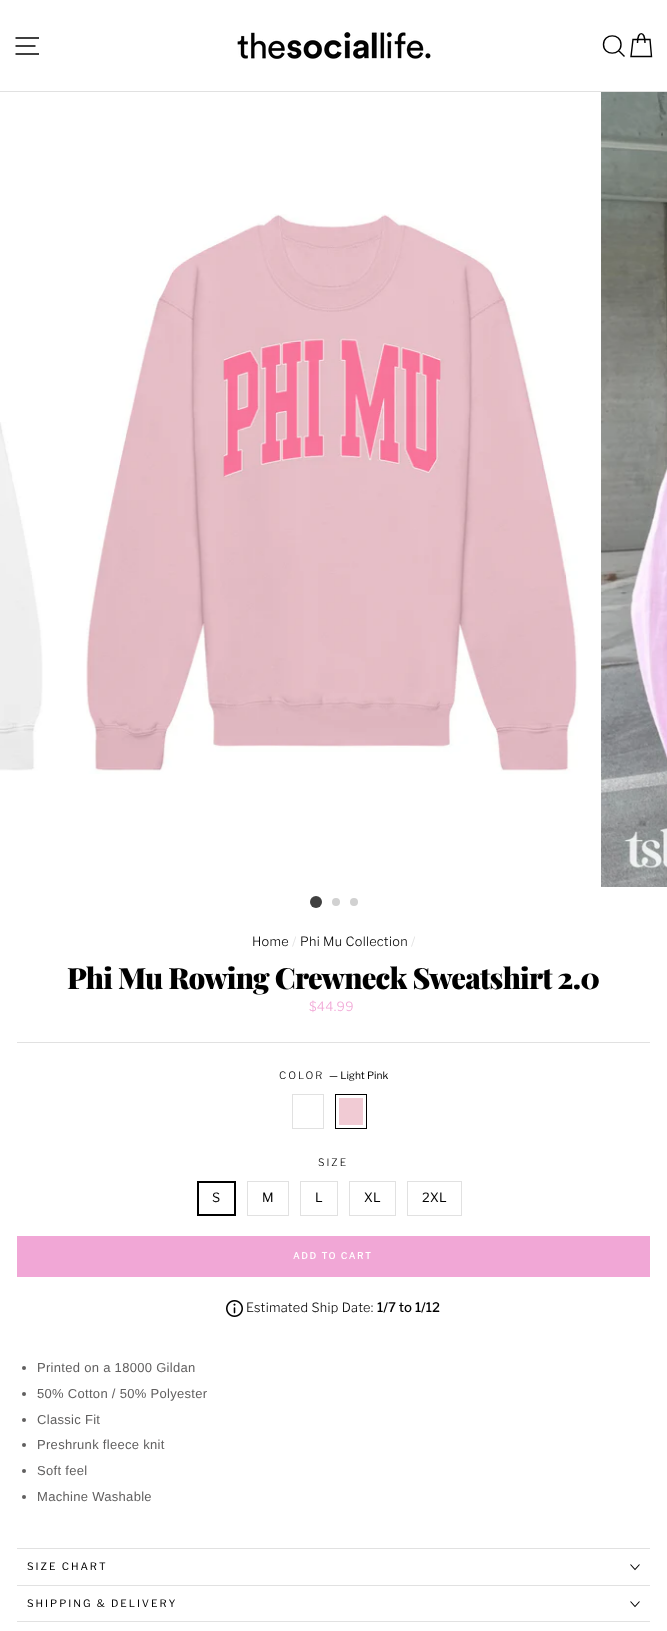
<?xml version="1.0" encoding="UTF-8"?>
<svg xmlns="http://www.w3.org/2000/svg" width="667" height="1631">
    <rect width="100%" height="100%" fill="#FFFFFF"/>
    <rect x="0" y="91" width="667" height="1" fill="#E1E1E1"/>
    <path d="M 15.5 38 H 39 M 15.5 46 H 35.5 M 15.5 54 H 39" fill="none" stroke="#000000" stroke-width="1.4"/>
    <image x="237" y="32" width="194" height="27" href="img_01.png"/>
    <path d="M 621 44.5 C 621 56 603.5 56 603.5 44.5 C 603.5 33 621 33 621 44.5 Z M 624.5 56.5 L 618.5 50.5 M 637.5 43 C 637.5 30.5 645 30.5 645 43 M 633 39.5 H 650 L 651.5 56.5 H 631 Z" fill="none" stroke="#000000" stroke-width="1.4"/>
    <image x="0" y="422" width="43" height="349" href="img_02.png"/>
    <image x="86" y="214" width="492" height="560" href="img_03.png"/>
    <image x="601" y="92" width="66" height="795" href="img_04.png"/>
    <circle cx="316" cy="902" r="6" fill="#404040"/>
    <circle cx="336" cy="902" r="4" fill="#D1D1D1"/>
    <circle cx="354" cy="902" r="4" fill="#D1D1D1"/>
    <text x="252" y="946" font-family="Libre Franklin" font-size="12.75" font-weight="300" letter-spacing="0.3" fill="#000000">Home</text>
    <text x="292" y="946" font-family="Libre Franklin" font-size="12.75" font-weight="300" letter-spacing="0.3" fill="#E1E1E1">/</text>
    <text x="300" y="946" font-family="Libre Franklin" font-size="12.75" font-weight="300" letter-spacing="0.3" fill="#000000">Phi Mu Collection</text>
    <text x="411" y="946" font-family="Libre Franklin" font-size="12.75" font-weight="300" letter-spacing="0.3" fill="#E1E1E1">/</text>
    <text x="67" y="989" font-family="Playfair Display" font-size="29.25" font-weight="900" letter-spacing="-0.75" fill="#000000">Phi Mu Rowing Crewneck Sweatshirt 2.0</text>
    <text x="309" y="1011" font-family="Libre Franklin" font-size="12.75" font-weight="300" letter-spacing="0.3" fill="#F1A7D6">$44.99</text>
    <rect x="17" y="1042" width="633" height="1" fill="#E1E1E1"/>
    <text x="279" y="1079" font-family="Libre Franklin" font-size="10.25" font-weight="300" letter-spacing="2" fill="#000000">COLOR</text>
    <text x="329" y="1079" font-family="Libre Franklin" font-size="10.25" fill="#000000">— Light Pink</text>
    <rect x="292.5" y="1094.5" width="31" height="34" fill="none" stroke="#E1E1E1"/>
    <rect x="339" y="1098" width="24" height="27" fill="#F1CBD4"/>
    <rect x="336" y="1095" width="30" height="33" fill="none" stroke="#000000" stroke-width="2"/>
    <rect x="337.5" y="1096.5" width="27" height="30" fill="none" stroke="#FFFFFF" stroke-width="3"/>
    <text x="318" y="1166" font-family="Libre Franklin" font-size="10.25" font-weight="300" letter-spacing="2" fill="#000000">SIZE</text>
    <rect x="198" y="1182" width="37" height="33" fill="none" stroke="#000000" stroke-width="2"/>
    <text x="212" y="1202" font-family="Libre Franklin" font-size="12.75" letter-spacing="0.3" fill="#000000">S</text>
    <rect x="247.5" y="1181.5" width="41" height="34" fill="none" stroke="#E1E1E1"/>
    <text x="262" y="1202" font-family="Libre Franklin" font-size="12.75" letter-spacing="0.3" fill="#000000">M</text>
    <rect x="300.5" y="1181.5" width="37" height="34" fill="none" stroke="#E1E1E1"/>
    <text x="315" y="1202" font-family="Libre Franklin" font-size="12.75" letter-spacing="0.3" fill="#000000">L</text>
    <rect x="349.5" y="1181.5" width="46" height="34" fill="none" stroke="#E1E1E1"/>
    <text x="364" y="1202" font-family="Libre Franklin" font-size="12.75" letter-spacing="0.3" fill="#000000">XL</text>
    <rect x="407.5" y="1181.5" width="54" height="34" fill="none" stroke="#E1E1E1"/>
    <text x="422" y="1202" font-family="Libre Franklin" font-size="12.75" letter-spacing="0.3" fill="#000000">2XL</text>
    <rect x="17" y="1236" width="633" height="41" fill="#F1A7D6"/>
    <text x="293" y="1259" font-family="Libre Franklin" font-size="9" font-weight="700" letter-spacing="1.75" fill="#FFFFFF">ADD TO CART</text>
    <image x="226" y="1300" width="17" height="17" href="img_05.png"/>
    <text x="246" y="1312" font-family="Libre Franklin" font-size="12.75" font-weight="300" letter-spacing="0.3" fill="#000000">Estimated Ship Date:</text>
    <text x="377" y="1312" font-family="Libre Franklin" font-size="12.75" font-weight="700" letter-spacing="0.3" fill="#000000">1/7 to 1/12</text>
    <circle cx="24" cy="1368" r="2" fill="#605F5F"/>
    <text x="37" y="1372" font-family="Liberation Sans" font-size="13" letter-spacing="0.3" fill="#605F5F">Printed on a 18000 Gildan</text>
    <circle cx="24" cy="1394" r="2" fill="#605F5F"/>
    <text x="37" y="1398" font-family="Liberation Sans" font-size="13" letter-spacing="0.3" fill="#605F5F">50% Cotton / 50% Polyester</text>
    <circle cx="24" cy="1420" r="2" fill="#605F5F"/>
    <text x="37" y="1424" font-family="Liberation Sans" font-size="13" letter-spacing="0.3" fill="#605F5F">Classic Fit</text>
    <circle cx="24" cy="1445" r="2" fill="#605F5F"/>
    <text x="37" y="1449" font-family="Liberation Sans" font-size="13" letter-spacing="0.3" fill="#605F5F">Preshrunk fleece knit</text>
    <circle cx="24" cy="1471" r="2" fill="#605F5F"/>
    <text x="37" y="1475" font-family="Liberation Sans" font-size="13" letter-spacing="0.3" fill="#605F5F">Soft feel</text>
    <circle cx="24" cy="1497" r="2" fill="#605F5F"/>
    <text x="37" y="1501" font-family="Liberation Sans" font-size="13" letter-spacing="0.3" fill="#605F5F">Machine Washable</text>
    <rect x="17" y="1548" width="633" height="1" fill="#E1E1E1"/>
    <text x="27" y="1570" font-family="Libre Franklin" font-size="10.25" letter-spacing="2" fill="#000000">SIZE CHART</text>
    <path d="M 630.5 1564.5 L 635 1569.5 L 639.5 1564.5" fill="none" stroke="#000000" stroke-width="1.1"/>
    <rect x="17" y="1585" width="633" height="1" fill="#E1E1E1"/>
    <text x="27" y="1607" font-family="Libre Franklin" font-size="10.25" letter-spacing="2" fill="#000000">SHIPPING &amp; DELIVERY</text>
    <path d="M 630.5 1601.5 L 635 1606.5 L 639.5 1601.5" fill="none" stroke="#000000" stroke-width="1.1"/>
    <rect x="17" y="1621" width="633" height="1" fill="#E1E1E1"/>
</svg>
